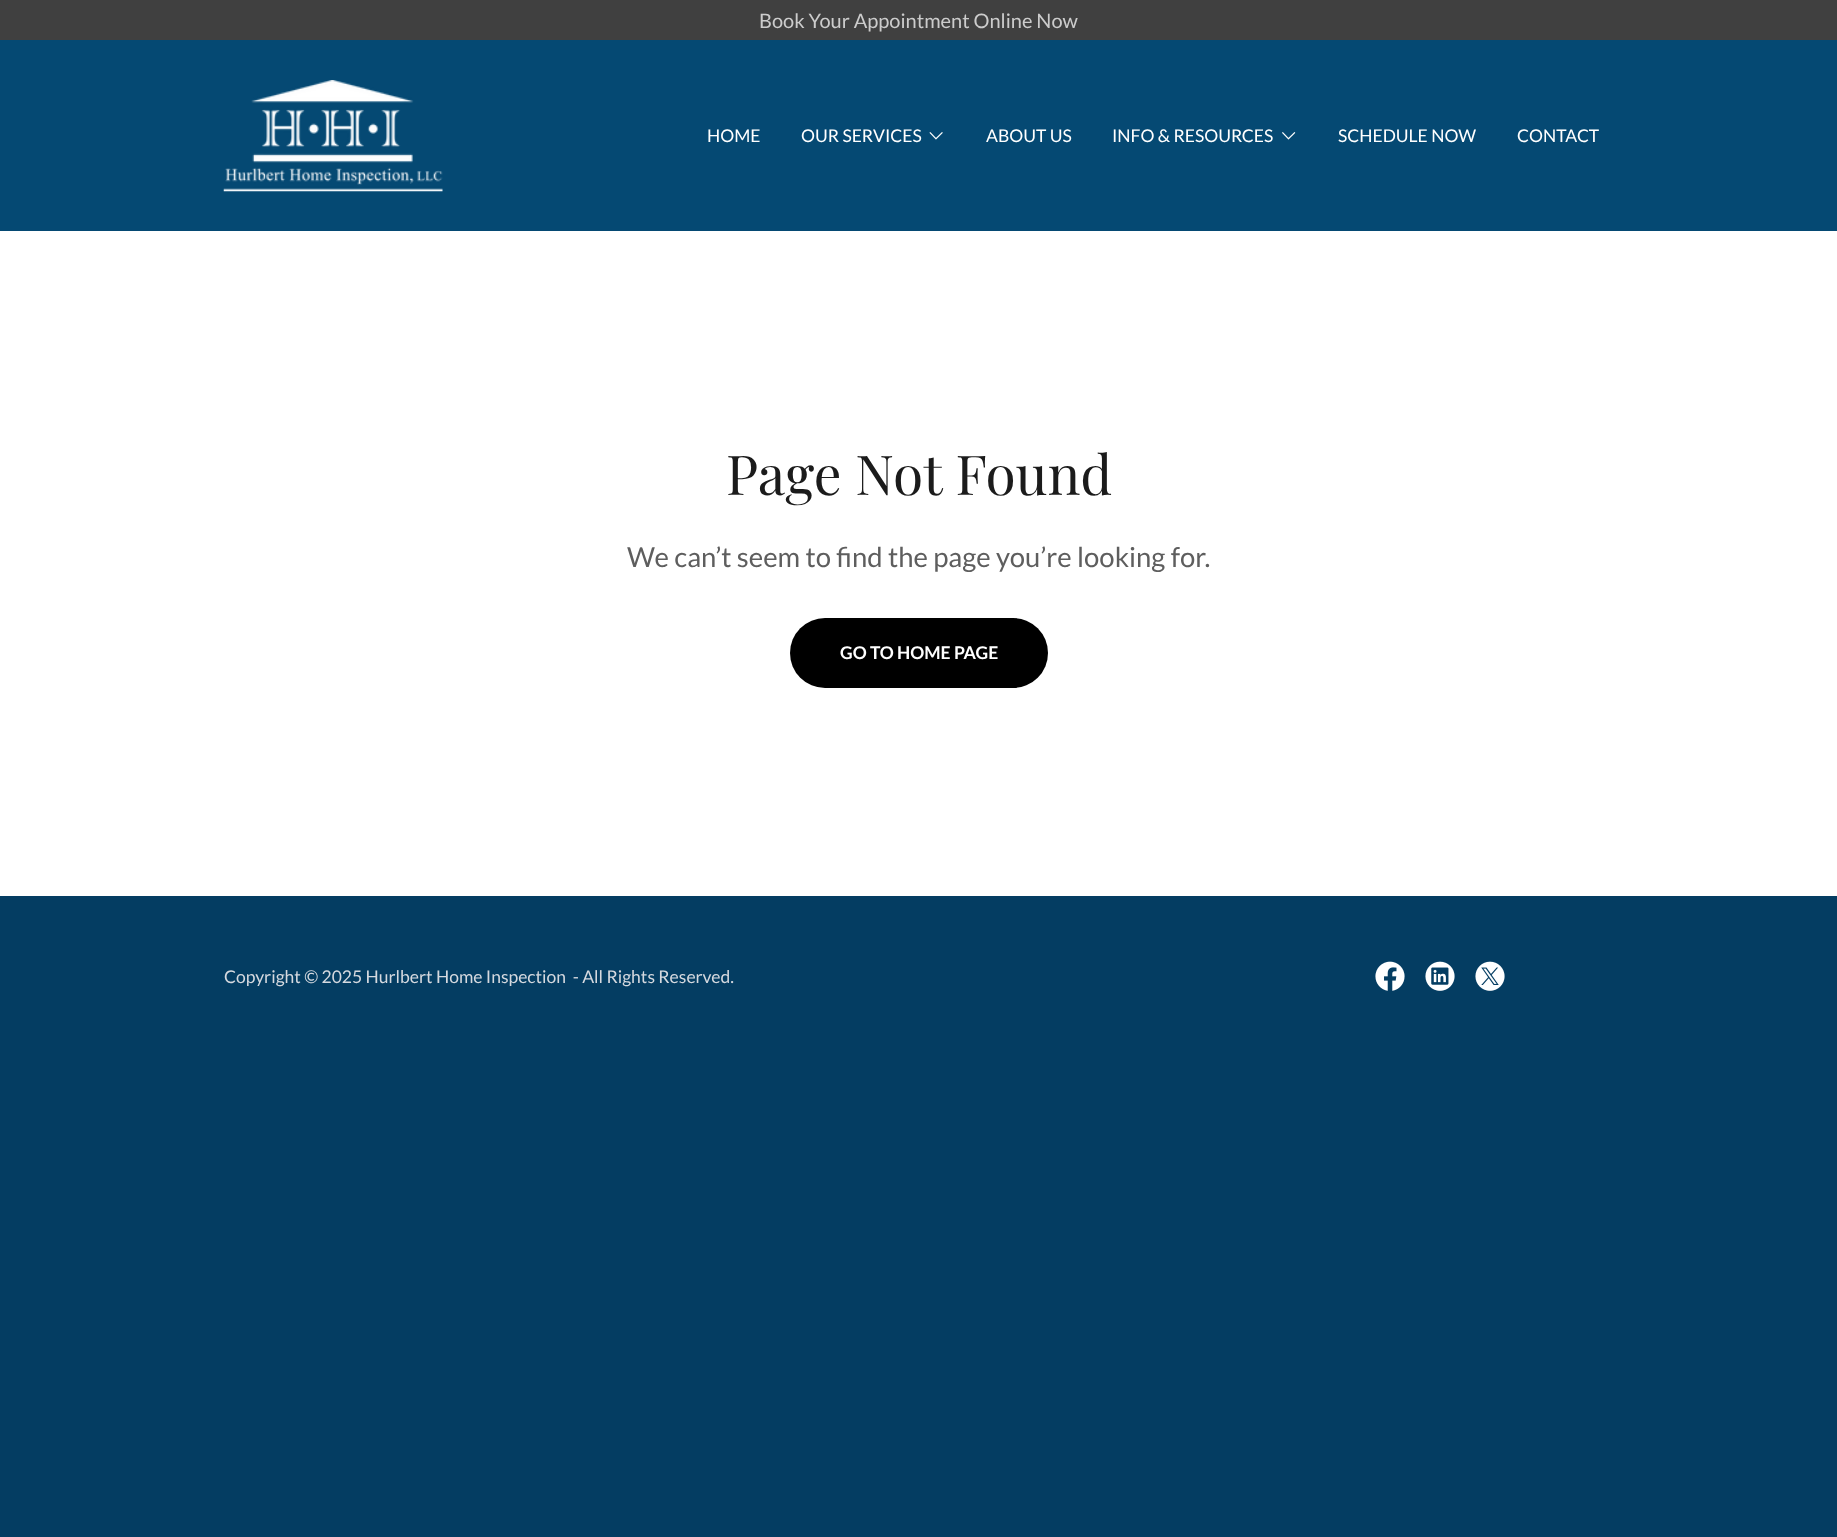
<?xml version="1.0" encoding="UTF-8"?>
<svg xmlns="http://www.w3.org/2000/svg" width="1837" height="1537">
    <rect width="100%" height="100%" fill="#043D62"/>
    <rect x="0" y="40" width="1837" height="191" fill="#054973"/>
    <rect x="0" y="0" width="1837" height="40" fill="#404040"/>
    <text x="759" y="28" font-family="Lato" font-size="20" fill="#CCCCCC">Book Your Appointment Online Now</text>
    <image x="223" y="80" width="220" height="112" href="img_01.png"/>
    <text x="707" y="142" font-family="Lato" font-size="17.5" fill="#FFFFFF">HOME</text>
    <text x="801" y="142" font-family="Lato" font-size="17.5" fill="#FFFFFF">OUR SERVICES</text>
    <image x="929" y="132" width="14" height="8" href="img_02.png"/>
    <text x="986" y="142" font-family="Lato" font-size="17.5" fill="#FFFFFF">ABOUT US</text>
    <text x="1112" y="142" font-family="Lato" font-size="17.5" fill="#FFFFFF">INFO &amp; RESOURCES</text>
    <image x="1282" y="132" width="14" height="8" href="img_03.png"/>
    <text x="1338" y="142" font-family="Lato" font-size="17.5" fill="#FFFFFF">SCHEDULE NOW</text>
    <text x="1517" y="142" font-family="Lato" font-size="17.5" fill="#FFFFFF">CONTACT</text>
    <rect x="0" y="231" width="1837" height="665" fill="#FFFFFF"/>
    <text x="726" y="495" font-family="Playfair Display" font-size="55" fill="#1B1B1B">Page Not Found</text>
    <text x="627" y="567" font-family="Lato" font-size="27.5" fill="#5E5E5E">We can’t seem to find the page you’re looking for.</text>
    <rect x="790" y="618" width="258" height="70" rx="35" fill="#000000"/>
    <text x="840" y="659" font-family="Lato" font-size="17.5" font-weight="700" fill="#FFFFFF">GO TO HOME PAGE</text>
    <text x="224" y="983" font-family="Lato" font-size="17.5" fill="#D5D9DF" xml:space="preserve">Copyright © 2025 Hurlbert Home Inspection  - All Rights Reserved.</text>
    <image x="1375" y="961" width="30" height="30" href="img_04.png"/>
    <image x="1425" y="961" width="30" height="30" href="img_05.png"/>
    <image x="1475" y="961" width="30" height="30" href="img_06.png"/>
</svg>
